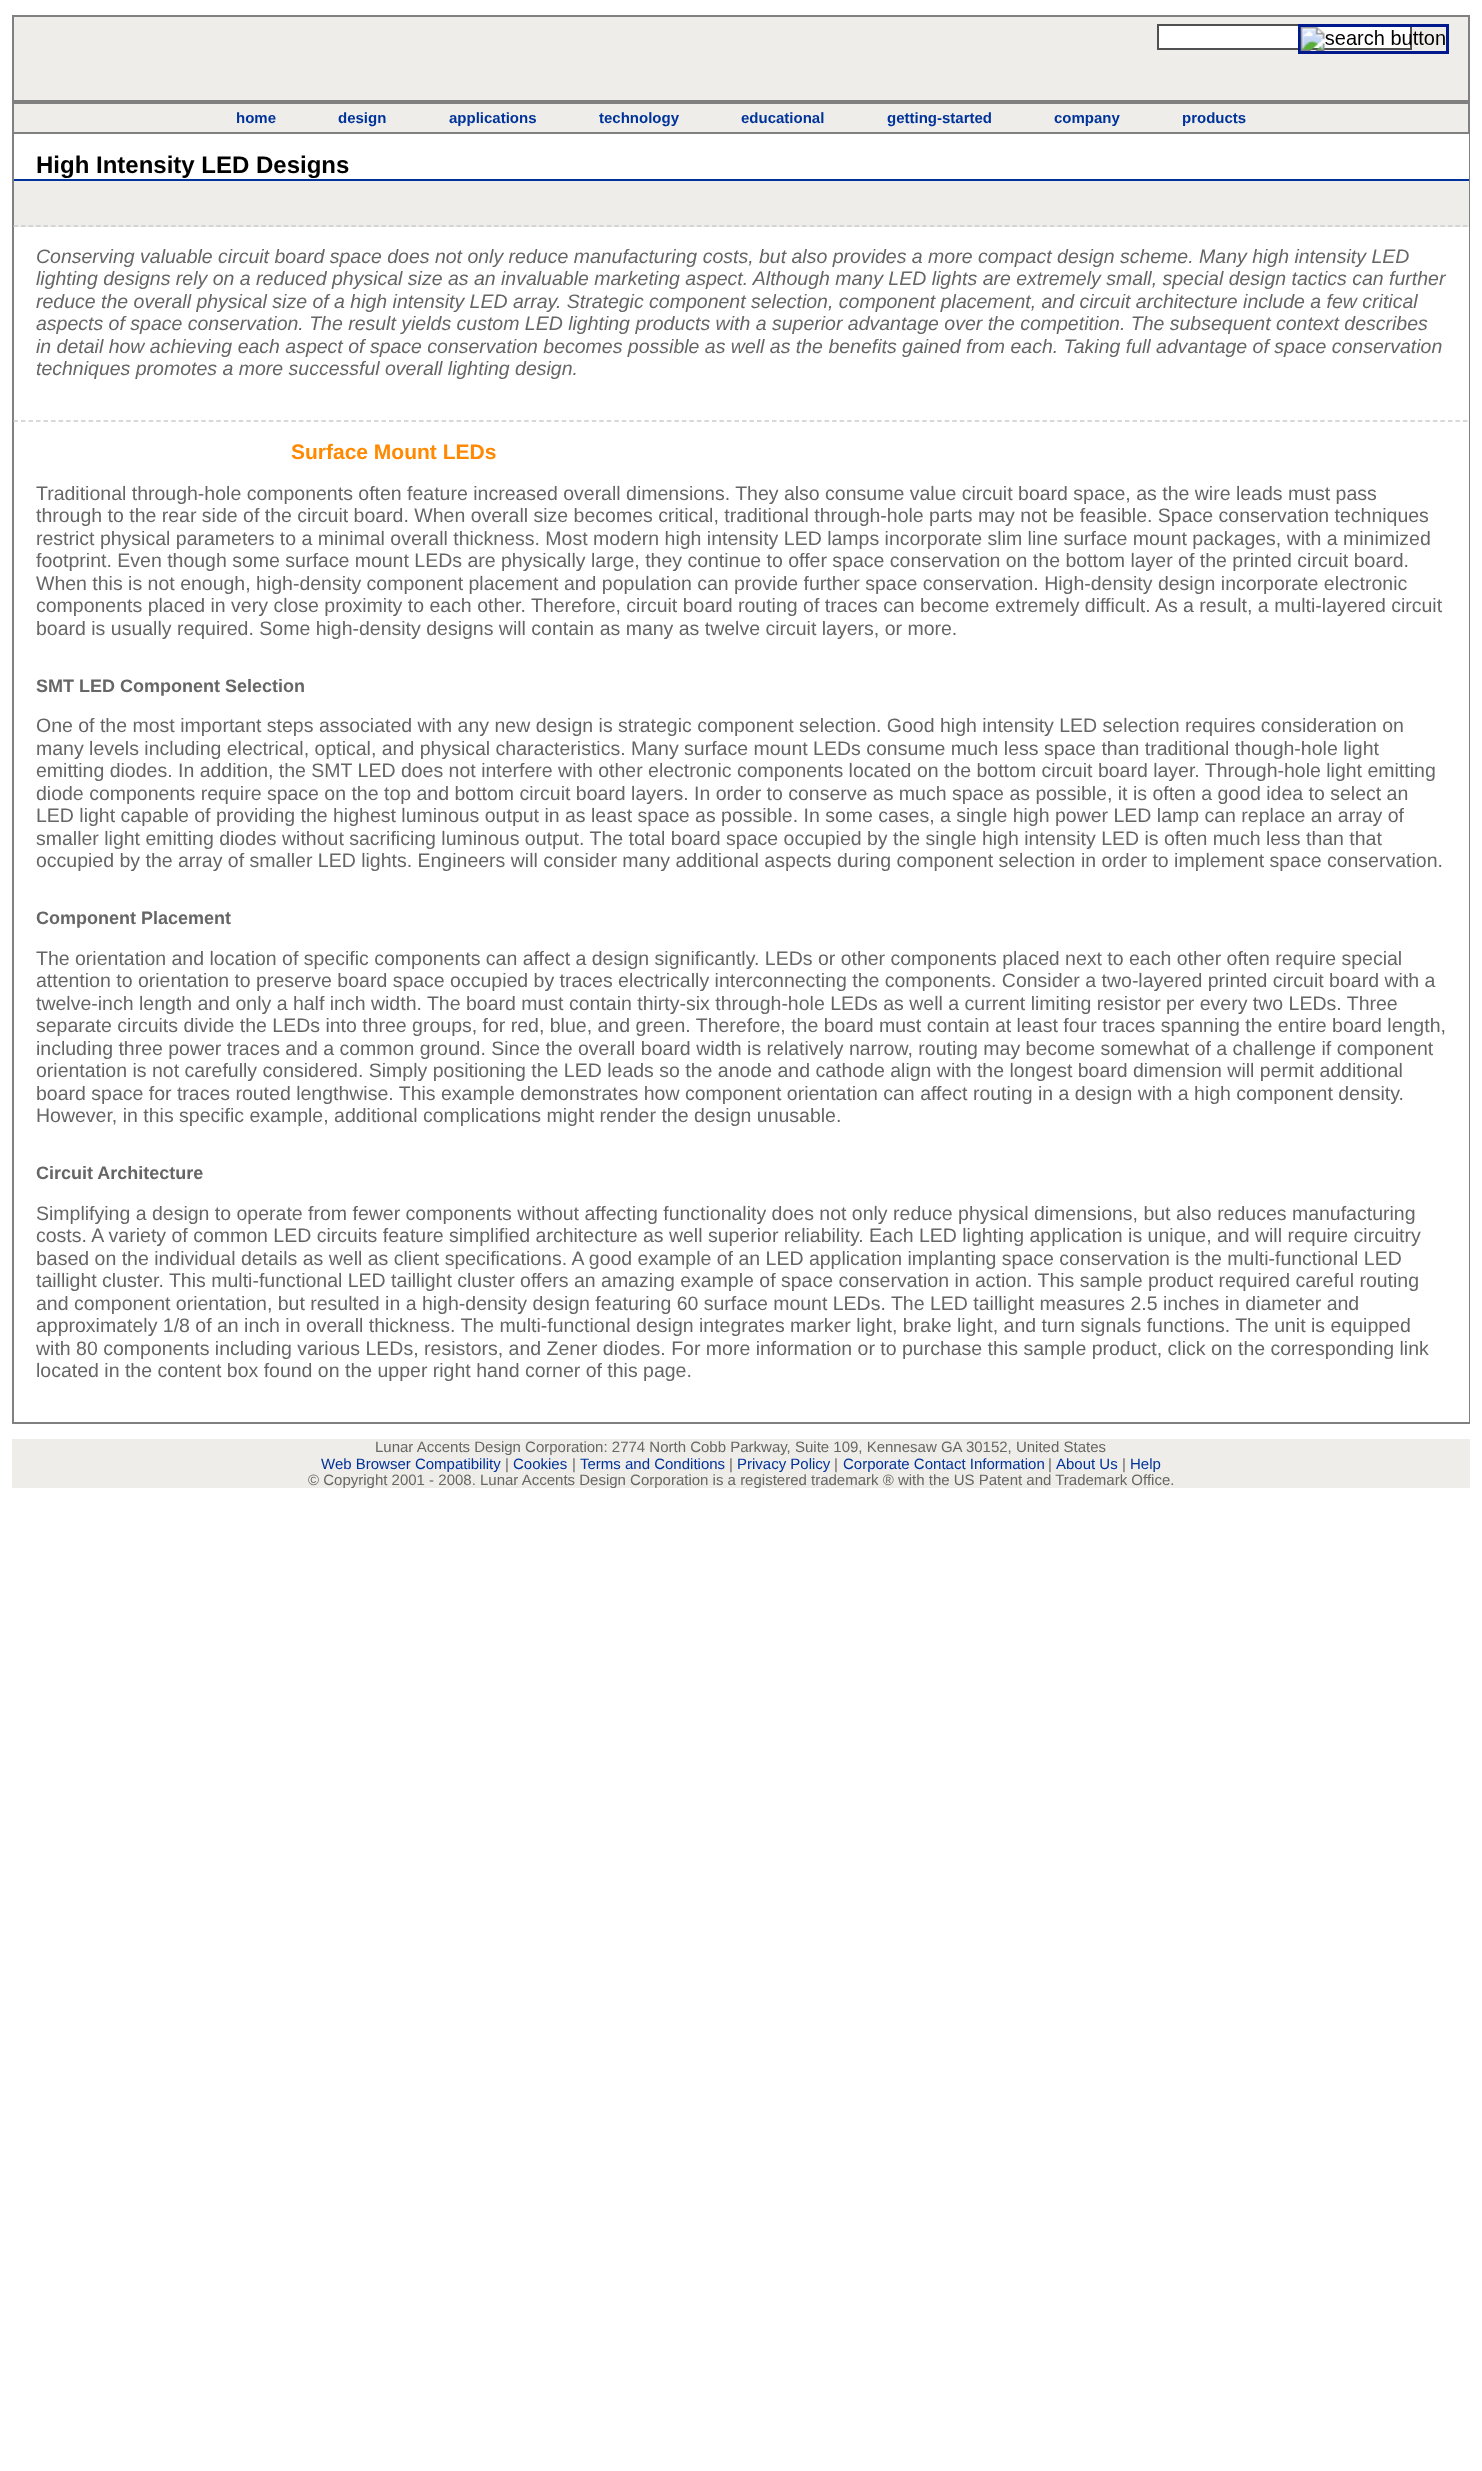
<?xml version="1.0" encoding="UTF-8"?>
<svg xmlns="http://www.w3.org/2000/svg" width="1482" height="2471">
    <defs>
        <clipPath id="clip1"><rect x="12" y="15" width="1458" height="1473"/></clipPath>
    </defs>
    <rect width="100%" height="100%" fill="#FFFFFF"/>
    <rect x="13" y="16" width="1456" height="85" fill="#EEEDE9" stroke="#808080" stroke-width="2"/>
    <rect x="1158" y="25" width="253" height="24" fill="#FFFFFF" stroke="#505050" stroke-width="2"/>
    <rect x="1299.5" y="25.5" width="148" height="27" fill="none" stroke="#00198C" stroke-width="3"/>
    <image x="1300" y="27" width="145" height="24" href="img_01.png"/>
    <rect x="13" y="103" width="1456" height="30" fill="#EEEDE9" stroke="#808080" stroke-width="2"/>
    <text x="236" y="123" font-family="Liberation Sans" font-size="15" font-weight="700" fill="#003399">home</text>
    <text x="338" y="123" font-family="Liberation Sans" font-size="15" font-weight="700" fill="#003399">design</text>
    <text x="449" y="123" font-family="Liberation Sans" font-size="15" font-weight="700" fill="#003399">applications</text>
    <text x="599" y="123" font-family="Liberation Sans" font-size="15" font-weight="700" fill="#003399">technology</text>
    <text x="741" y="123" font-family="Liberation Sans" font-size="15" font-weight="700" fill="#003399">educational</text>
    <text x="887" y="123" font-family="Liberation Sans" font-size="15" font-weight="700" fill="#003399">getting-started</text>
    <text x="1054" y="123" font-family="Liberation Sans" font-size="15" font-weight="700" fill="#003399">company</text>
    <text x="1182" y="123" font-family="Liberation Sans" font-size="15" font-weight="700" fill="#003399">products</text>
    <rect x="1469" y="134" width="1" height="1290" fill="#808080"/>
    <rect x="12" y="1422" width="1458" height="2" fill="#808080"/>
    <rect x="12" y="134" width="2" height="1290" fill="#808080"/>
    <text x="36" y="173" font-family="Liberation Sans" font-size="24" font-weight="700" fill="#000000">High Intensity LED Designs</text>
    <rect x="14" y="181" width="1455" height="46" fill="#EEEDE9"/>
    <rect x="14" y="179" width="1455" height="2" fill="#003399"/>
    <path d="M 13.5 226 H 1468.5" fill="none" stroke="#CCCCCC" stroke-width="1.5" stroke-dasharray="4.5 3.01"/>
    <text font-family="Liberation Sans" font-size="19.5" font-style="italic" fill="#666666">
        <tspan x="36" y="263">Conserving valuable circuit board space does not only reduce manufacturing costs, but also provides a more compact design scheme. Many high intensity LED</tspan>
        <tspan x="36" y="285">lighting designs rely on a reduced physical size as an invaluable marketing aspect. Although many LED lights are extremely small, special design tactics can further</tspan>
        <tspan x="36" y="308">reduce the overall physical size of a high intensity LED array. Strategic component selection, component placement, and circuit architecture include a few critical</tspan>
        <tspan x="36" y="330">aspects of space conservation. The result yields custom LED lighting products with a superior advantage over the competition. The subsequent context describes</tspan>
        <tspan x="36" y="353">in detail how achieving each aspect of space conservation becomes possible as well as the benefits gained from each. Taking full advantage of space conservation</tspan>
        <tspan x="36" y="375">techniques promotes a more successful overall lighting design.</tspan>
    </text>
    <path d="M 13.5 421 H 1468.5" fill="none" stroke="#CCCCCC" stroke-width="1.5" stroke-dasharray="4.5 3.01"/>
    <text x="291" y="459" font-family="Liberation Sans" font-size="21" font-weight="700" fill="#FF8900">Surface Mount LEDs</text>
    <text font-family="Liberation Sans" font-size="19.5" fill="#666666">
        <tspan x="36" y="500">Traditional through-hole components often feature increased overall dimensions. They also consume value circuit board space, as the wire leads must pass</tspan>
        <tspan x="36" y="522">through to the rear side of the circuit board. When overall size becomes critical, traditional through-hole parts may not be feasible. Space conservation techniques</tspan>
        <tspan x="36" y="545">restrict physical parameters to a minimal overall thickness. Most modern high intensity LED lamps incorporate slim line surface mount packages, with a minimized</tspan>
        <tspan x="36" y="567">footprint. Even though some surface mount LEDs are physically large, they continue to offer space conservation on the bottom layer of the printed circuit board.</tspan>
        <tspan x="36" y="590">When this is not enough, high-density component placement and population can provide further space conservation. High-density design incorporate electronic</tspan>
        <tspan x="36" y="612">components placed in very close proximity to each other. Therefore, circuit board routing of traces can become extremely difficult. As a result, a multi-layered circuit</tspan>
        <tspan x="36" y="635">board is usually required. Some high-density designs will contain as many as twelve circuit layers, or more.</tspan>
    </text>
    <text x="36" y="692" font-family="Liberation Sans" font-size="18" font-weight="700" fill="#666666">SMT LED Component Selection</text>
    <text font-family="Liberation Sans" font-size="19.5" fill="#666666">
        <tspan x="36" y="732">One of the most important steps associated with any new design is strategic component selection. Good high intensity LED selection requires consideration on</tspan>
        <tspan x="36" y="755">many levels including electrical, optical, and physical characteristics. Many surface mount LEDs consume much less space than traditional though-hole light</tspan>
        <tspan x="36" y="777">emitting diodes. In addition, the SMT LED does not interfere with other electronic components located on the bottom circuit board layer. Through-hole light emitting</tspan>
        <tspan x="36" y="800">diode components require space on the top and bottom circuit board layers. In order to conserve as much space as possible, it is often a good idea to select an</tspan>
        <tspan x="36" y="822">LED light capable of providing the highest luminous output in as least space as possible. In some cases, a single high power LED lamp can replace an array of</tspan>
        <tspan x="36" y="845">smaller light emitting diodes without sacrificing luminous output. The total board space occupied by the single high intensity LED is often much less than that</tspan>
        <tspan x="36" y="867">occupied by the array of smaller LED lights. Engineers will consider many additional aspects during component selection in order to implement space conservation.</tspan>
    </text>
    <text x="36" y="924" font-family="Liberation Sans" font-size="18" font-weight="700" fill="#666666">Component Placement</text>
    <text font-family="Liberation Sans" font-size="19.5" fill="#666666">
        <tspan x="36" y="965">The orientation and location of specific components can affect a design significantly. LEDs or other components placed next to each other often require special</tspan>
        <tspan x="36" y="987">attention to orientation to preserve board space occupied by traces electrically interconnecting the components. Consider a two-layered printed circuit board with a</tspan>
        <tspan x="36" y="1010">twelve-inch length and only a half inch width. The board must contain thirty-six through-hole LEDs as well a current limiting resistor per every two LEDs. Three</tspan>
        <tspan x="36" y="1032">separate circuits divide the LEDs into three groups, for red, blue, and green. Therefore, the board must contain at least four traces spanning the entire board length,</tspan>
        <tspan x="36" y="1055">including three power traces and a common ground. Since the overall board width is relatively narrow, routing may become somewhat of a challenge if component</tspan>
        <tspan x="36" y="1077">orientation is not carefully considered. Simply positioning the LED leads so the anode and cathode align with the longest board dimension will permit additional</tspan>
        <tspan x="36" y="1100">board space for traces routed lengthwise. This example demonstrates how component orientation can affect routing in a design with a high component density.</tspan>
        <tspan x="36" y="1122">However, in this specific example, additional complications might render the design unusable.</tspan>
    </text>
    <text x="36" y="1179" font-family="Liberation Sans" font-size="18" font-weight="700" fill="#666666">Circuit Architecture</text>
    <text font-family="Liberation Sans" font-size="19.5" fill="#666666">
        <tspan x="36" y="1220">Simplifying a design to operate from fewer components without affecting functionality does not only reduce physical dimensions, but also reduces manufacturing</tspan>
        <tspan x="36" y="1242">costs. A variety of common LED circuits feature simplified architecture as well superior reliability. Each LED lighting application is unique, and will require circuitry</tspan>
        <tspan x="36" y="1265">based on the individual details as well as client specifications. A good example of an LED application implanting space conservation is the multi-functional LED</tspan>
        <tspan x="36" y="1287">taillight cluster. This multi-functional LED taillight cluster offers an amazing example of space conservation in action. This sample product required careful routing</tspan>
        <tspan x="36" y="1310">and component orientation, but resulted in a high-density design featuring 60 surface mount LEDs. The LED taillight measures 2.5 inches in diameter and</tspan>
        <tspan x="36" y="1332">approximately 1/8 of an inch in overall thickness. The multi-functional design integrates marker light, brake light, and turn signals functions. The unit is equipped</tspan>
        <tspan x="36" y="1355">with 80 components including various LEDs, resistors, and Zener diodes. For more information or to purchase this sample product, click on the corresponding link</tspan>
        <tspan x="36" y="1377">located in the content box found on the upper right hand corner of this page.</tspan>
    </text>
    <rect x="12" y="1439" width="1458" height="49" fill="#EEEDE9"/>
    <text x="375" y="1452" font-family="Liberation Sans" font-size="15" fill="#666666">Lunar Accents Design Corporation: 2774 North Cobb Parkway, Suite 109, Kennesaw GA 30152, United States</text>
    <text x="321" y="1469" font-family="Liberation Sans" font-size="15" fill="#003399">Web Browser Compatibility</text>
    <text x="505" y="1469" font-family="Liberation Sans" font-size="15" fill="#666666">|</text>
    <text x="513" y="1469" font-family="Liberation Sans" font-size="15" fill="#003399">Cookies</text>
    <text x="572" y="1469" font-family="Liberation Sans" font-size="15" fill="#666666">|</text>
    <text x="580" y="1469" font-family="Liberation Sans" font-size="15" fill="#003399">Terms and Conditions</text>
    <text x="729" y="1469" font-family="Liberation Sans" font-size="15" fill="#666666">|</text>
    <text x="737" y="1469" font-family="Liberation Sans" font-size="15" fill="#003399">Privacy Policy</text>
    <text x="834" y="1469" font-family="Liberation Sans" font-size="15" fill="#666666">|</text>
    <text x="843" y="1469" font-family="Liberation Sans" font-size="15" fill="#003399">Corporate Contact Information</text>
    <text x="1048" y="1469" font-family="Liberation Sans" font-size="15" fill="#666666">|</text>
    <text x="1056" y="1469" font-family="Liberation Sans" font-size="15" fill="#003399">About Us</text>
    <text x="1122" y="1469" font-family="Liberation Sans" font-size="15" fill="#666666">|</text>
    <text x="1130" y="1469" font-family="Liberation Sans" font-size="15" fill="#003399">Help</text>
    <g clip-path="url(#clip1)">
        <text x="308" y="1485" font-family="Liberation Sans" font-size="15" fill="#666666">© Copyright 2001 - 2008. Lunar Accents Design Corporation is a registered trademark ® with the US Patent and Trademark Office.</text>
    </g>
</svg>
